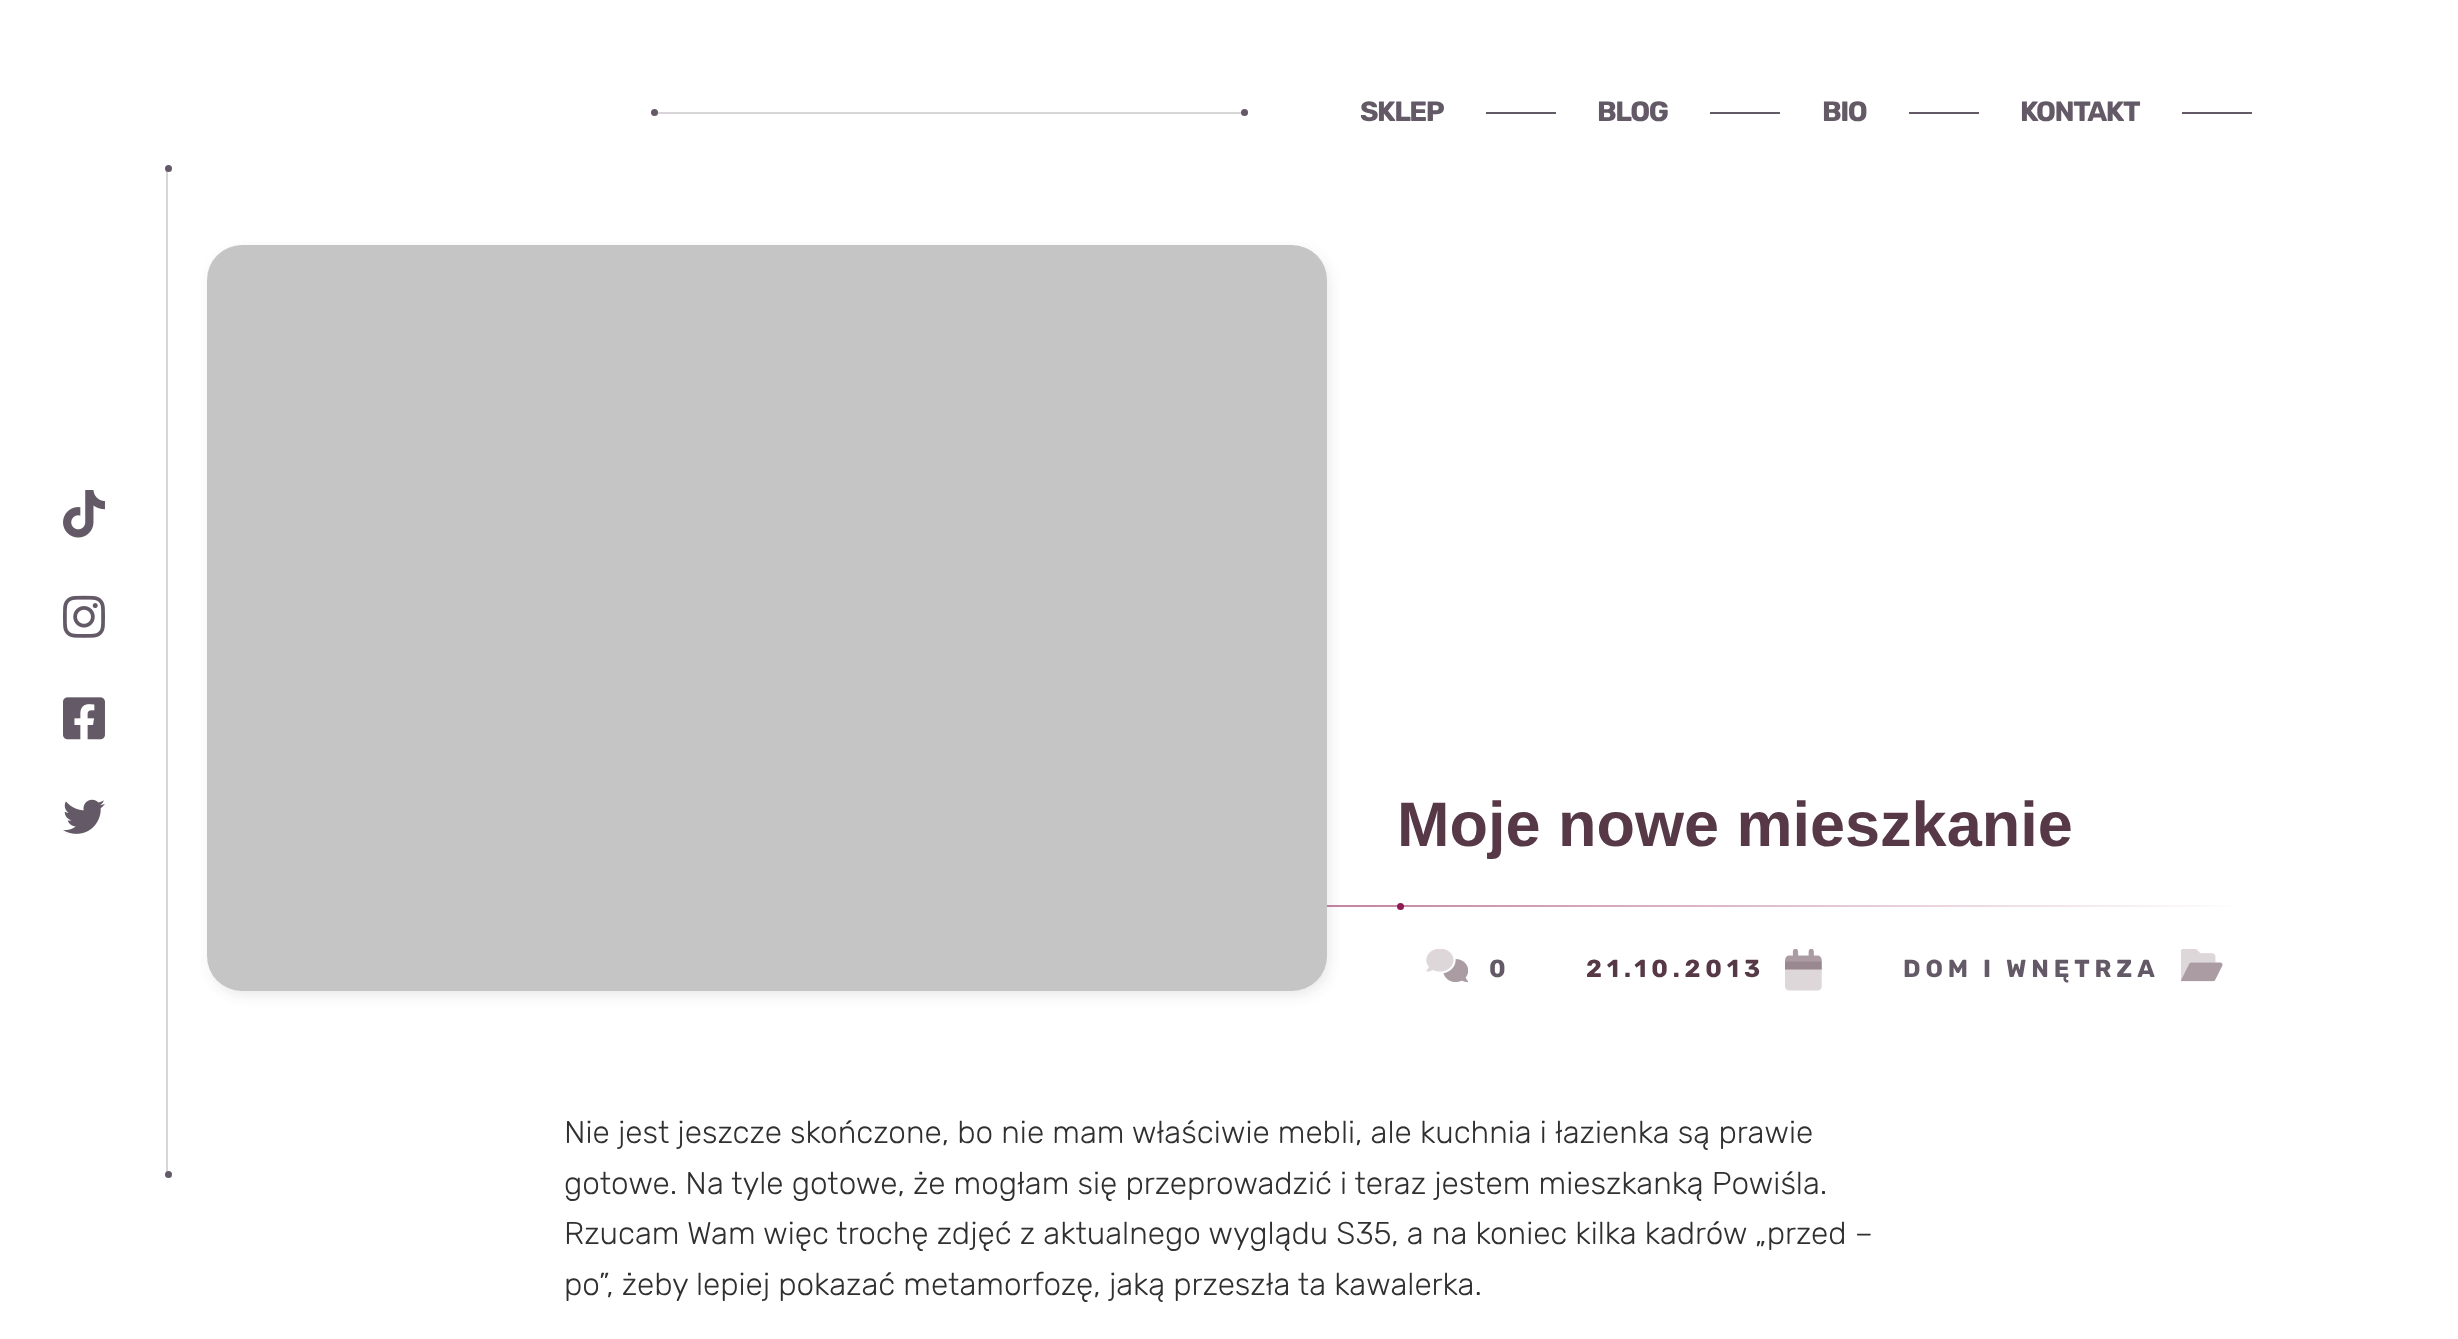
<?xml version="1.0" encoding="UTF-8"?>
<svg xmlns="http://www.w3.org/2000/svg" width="2458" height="1339">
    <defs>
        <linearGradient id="g1" gradientUnits="userSpaceOnUse" x1="2252" y1="906" x2="541" y2="906"><stop offset="0" stop-color="#FFFFFF"/><stop offset="1" stop-color="#8E1B53"/></linearGradient>
        <filter id="blur1" x="-50%" y="-200%" width="200%" height="500%"><feGaussianBlur stdDeviation="6"/></filter>
    </defs>
    <rect width="100%" height="100%" fill="#FFFFFF"/>
    <rect x="651" y="112" width="597" height="2" fill="#D8D6D9"/>
    <circle cx="654.5" cy="112.5" r="3.5" fill="#645966"/>
    <circle cx="1244.5" cy="112.5" r="3.5" fill="#645966"/>
    <text x="1360" y="121" font-family="Rubik" font-size="28" font-weight="700" letter-spacing="-1.5" fill="#645966">SKLEP</text>
    <rect x="1486" y="112" width="70" height="2" fill="#645966"/>
    <text x="1597" y="121" font-family="Rubik" font-size="28" font-weight="700" letter-spacing="-1.5" fill="#645966">BLOG</text>
    <rect x="1710" y="112" width="70" height="2" fill="#645966"/>
    <text x="1822" y="121" font-family="Rubik" font-size="28" font-weight="700" letter-spacing="-1.5" fill="#645966">BIO</text>
    <rect x="1909" y="112" width="70" height="2" fill="#645966"/>
    <text x="2020" y="121" font-family="Rubik" font-size="28" font-weight="700" letter-spacing="-1.5" fill="#645966">KONTAKT</text>
    <rect x="2182" y="112" width="70" height="2" fill="#645966"/>
    <image x="63" y="490" width="42" height="48" href="img_01.png"/>
    <circle cx="168.5" cy="168.5" r="3.5" fill="#645966"/>
    <rect x="166" y="168" width="2" height="1006" fill="#645966" fill-opacity="0.25"/>
    <image x="63" y="595" width="42" height="43" href="img_02.png"/>
    <image x="63" y="697" width="42" height="43" href="img_03.png"/>
    <image x="63" y="799" width="42" height="35" href="img_04.png"/>
    <circle cx="168.5" cy="1174.5" r="3.5" fill="#645966"/>
    <rect x="1327" y="905" width="906" height="2" fill="url(#g1)"/>
    <rect x="210" y="250" width="1120" height="746" rx="35" fill="#645966" fill-opacity="0.12" filter="url(#blur1)"/>
    <rect x="207" y="245" width="1120" height="746" rx="35" fill="#C5C5C5"/>
    <text x="1397" y="846" font-family="Liberation Sans" font-size="63" font-weight="700" fill="#573847">Moje nowe mieszkanie</text>
    <circle cx="1400.5" cy="906.5" r="3.5" fill="#8E1B53"/>
    <image x="1426" y="949" width="42" height="34" href="img_05.png"/>
    <text x="1489" y="977" font-family="Rubik" font-size="24.5" font-weight="700" letter-spacing="4.9" fill="#645966">0</text>
    <text x="1586" y="977" font-family="Rubik" font-size="24.5" font-weight="700" letter-spacing="4.9" fill="#573847">21.10.2013</text>
    <image x="1785" y="949" width="37" height="42" href="img_06.png"/>
    <text x="1903" y="977" font-family="Rubik" font-size="24.5" font-weight="700" letter-spacing="4.9" fill="#645966">DOM I WNĘTRZA</text>
    <image x="2181" y="949" width="42" height="33" href="img_07.png"/>
    <text font-family="Rubik" font-size="31.5" font-weight="300" fill="#303030">
        <tspan x="564" y="1143">Nie jest jeszcze skończone, bo nie mam właściwie mebli, ale kuchnia i łazienka są prawie</tspan>
        <tspan x="564" y="1194">gotowe. Na tyle gotowe, że mogłam się przeprowadzić i teraz jestem mieszkanką Powiśla.</tspan>
        <tspan x="564" y="1244">Rzucam Wam więc trochę zdjęć z aktualnego wyglądu S35, a na koniec kilka kadrów „przed –</tspan>
        <tspan x="564" y="1295">po”, żeby lepiej pokazać metamorfozę, jaką przeszła ta kawalerka.</tspan>
    </text>
</svg>
